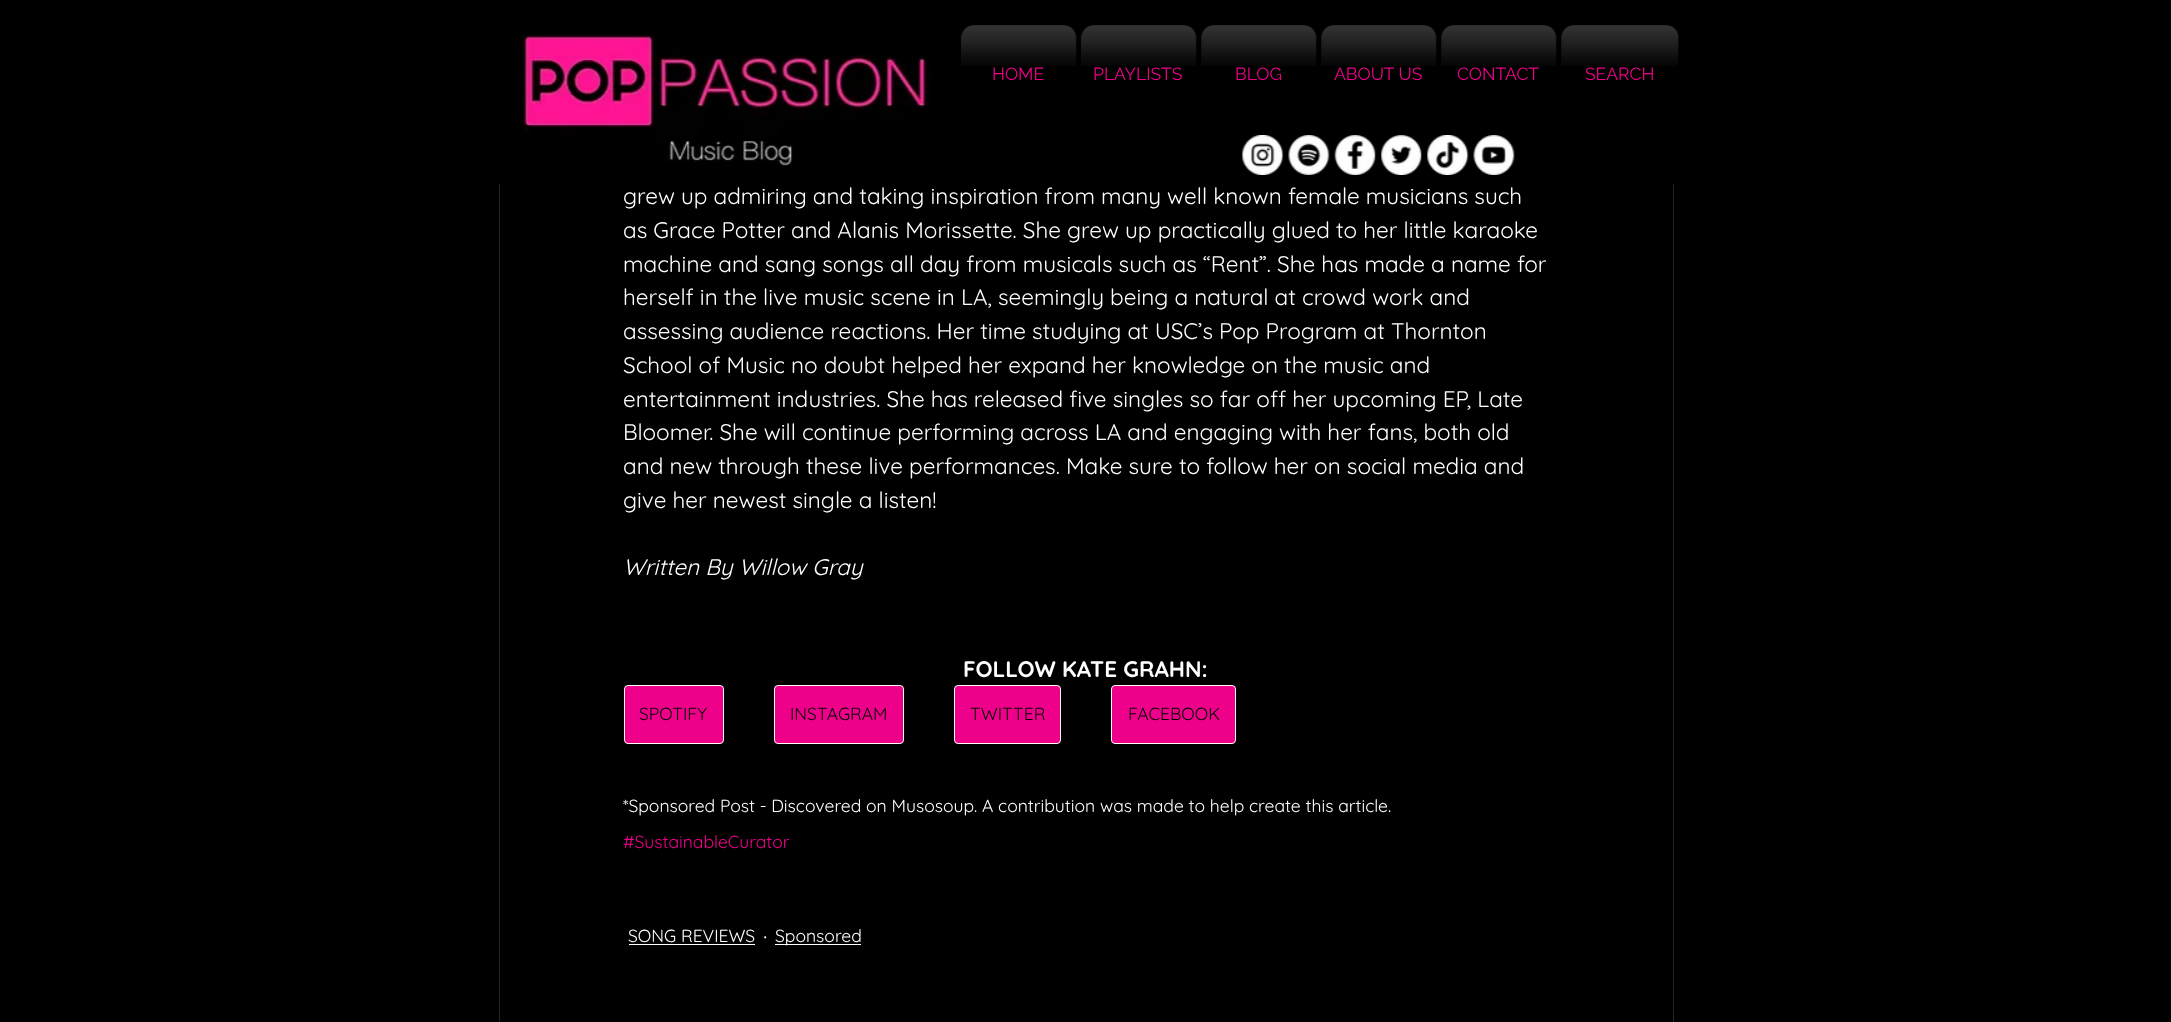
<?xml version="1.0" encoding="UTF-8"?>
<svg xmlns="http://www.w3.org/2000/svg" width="2171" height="1022">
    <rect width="100%" height="100%" fill="#000000"/>
    <rect x="499.5" y="-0.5" width="1174" height="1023" fill="none" stroke="#262626"/>
    <rect x="499" y="0" width="1175" height="184" fill="#000000"/>
    <image x="521" y="34" width="410" height="132" href="img_01.png"/>
    <image x="961" y="25" width="116" height="41" href="img_02.png"/>
    <text x="992" y="80" font-family="Raleway" font-size="17.5" fill="#EE008B">HOME</text>
    <image x="1081" y="25" width="116" height="41" href="img_02.png"/>
    <text x="1093" y="80" font-family="Raleway" font-size="17.5" fill="#EE008B">PLAYLISTS</text>
    <image x="1201" y="25" width="116" height="41" href="img_03.png"/>
    <text x="1235" y="80" font-family="Raleway" font-size="17.5" fill="#EE008B">BLOG</text>
    <image x="1321" y="25" width="116" height="41" href="img_04.png"/>
    <text x="1334" y="80" font-family="Raleway" font-size="17.5" fill="#EE008B">ABOUT US</text>
    <image x="1441" y="25" width="116" height="41" href="img_04.png"/>
    <text x="1457" y="80" font-family="Raleway" font-size="17.5" fill="#EE008B">CONTACT</text>
    <image x="1561" y="25" width="118" height="41" href="img_05.png"/>
    <text x="1585" y="80" font-family="Raleway" font-size="17.5" fill="#EE008B">SEARCH</text>
    <image x="1242" y="135" width="42" height="40" href="img_06.png"/>
    <image x="1288" y="135" width="42" height="40" href="img_07.png"/>
    <image x="1334" y="135" width="42" height="40" href="img_08.png"/>
    <image x="1381" y="135" width="41" height="40" href="img_09.png"/>
    <image x="1427" y="135" width="42" height="40" href="img_10.png"/>
    <image x="1473" y="135" width="42" height="40" href="img_11.png"/>
    <text font-family="Quicksand" font-size="22.5" fill="#FFFFFF">
        <tspan x="623" y="204">grew up admiring and taking inspiration from many well known female musicians such</tspan>
        <tspan x="623" y="238">as Grace Potter and Alanis Morissette. She grew up practically glued to her little karaoke</tspan>
        <tspan x="623" y="272">machine and sang songs all day from musicals such as “Rent”. She has made a name for</tspan>
        <tspan x="623" y="305">herself in the live music scene in LA, seemingly being a natural at crowd work and</tspan>
        <tspan x="623" y="339">assessing audience reactions. Her time studying at USC’s Pop Program at Thornton</tspan>
        <tspan x="623" y="373">School of Music no doubt helped her expand her knowledge on the music and</tspan>
        <tspan x="623" y="407">entertainment industries. She has released five singles so far off her upcoming EP, Late</tspan>
        <tspan x="623" y="440">Bloomer. She will continue performing across LA and engaging with her fans, both old</tspan>
        <tspan x="623" y="474">and new through these live performances. Make sure to follow her on social media and</tspan>
        <tspan x="623" y="508">give her newest single a listen!</tspan>
    </text>
    <text x="623" y="575" font-family="Quicksand" font-size="22.5" font-style="italic" fill="#FFFFFF">Written By Willow Gray</text>
    <text x="963" y="677" font-family="Quicksand" font-size="22.5" font-weight="700" fill="#FFFFFF">FOLLOW KATE GRAHN:</text>
    <rect x="624.5" y="685.5" width="99" height="58" rx="3.5" fill="#EE008B" stroke="#FFFFFF"/>
    <text x="639" y="720" font-family="Quicksand" font-size="17.5" fill="#000000">SPOTIFY</text>
    <rect x="774.5" y="685.5" width="129" height="58" rx="3.5" fill="#EE008B" stroke="#FFFFFF"/>
    <text x="790" y="720" font-family="Quicksand" font-size="17.5" fill="#000000">INSTAGRAM</text>
    <rect x="954.5" y="685.5" width="106" height="58" rx="3.5" fill="#EE008B" stroke="#FFFFFF"/>
    <text x="970" y="720" font-family="Quicksand" font-size="17.5" fill="#000000">TWITTER</text>
    <rect x="1111.5" y="685.5" width="124" height="58" rx="3.5" fill="#EE008B" stroke="#FFFFFF"/>
    <text x="1128" y="720" font-family="Quicksand" font-size="17.5" fill="#000000">FACEBOOK</text>
    <text x="623" y="812" font-family="Quicksand" font-size="17.5" fill="#FFFFFF">*Sponsored Post - Discovered on Musosoup. A contribution was made to help create this article.</text>
    <text x="623" y="848" font-family="Quicksand" font-size="17.5" fill="#EE008B">#SustainableCurator</text>
    <text x="628" y="942" font-family="Quicksand" font-size="17.5" fill="#FFFFFF">SONG REVIEWS</text>
    <rect x="629" y="944" width="126" height="1" fill="#FFFFFF"/>
    <text x="763" y="944" font-family="Quicksand" font-size="22.5" fill="#FFFFFF">·</text>
    <rect x="775" y="944" width="86" height="1" fill="#FFFFFF"/>
    <text x="775" y="942" font-family="Quicksand" font-size="17.5" fill="#FFFFFF">Sponsored</text>
</svg>
